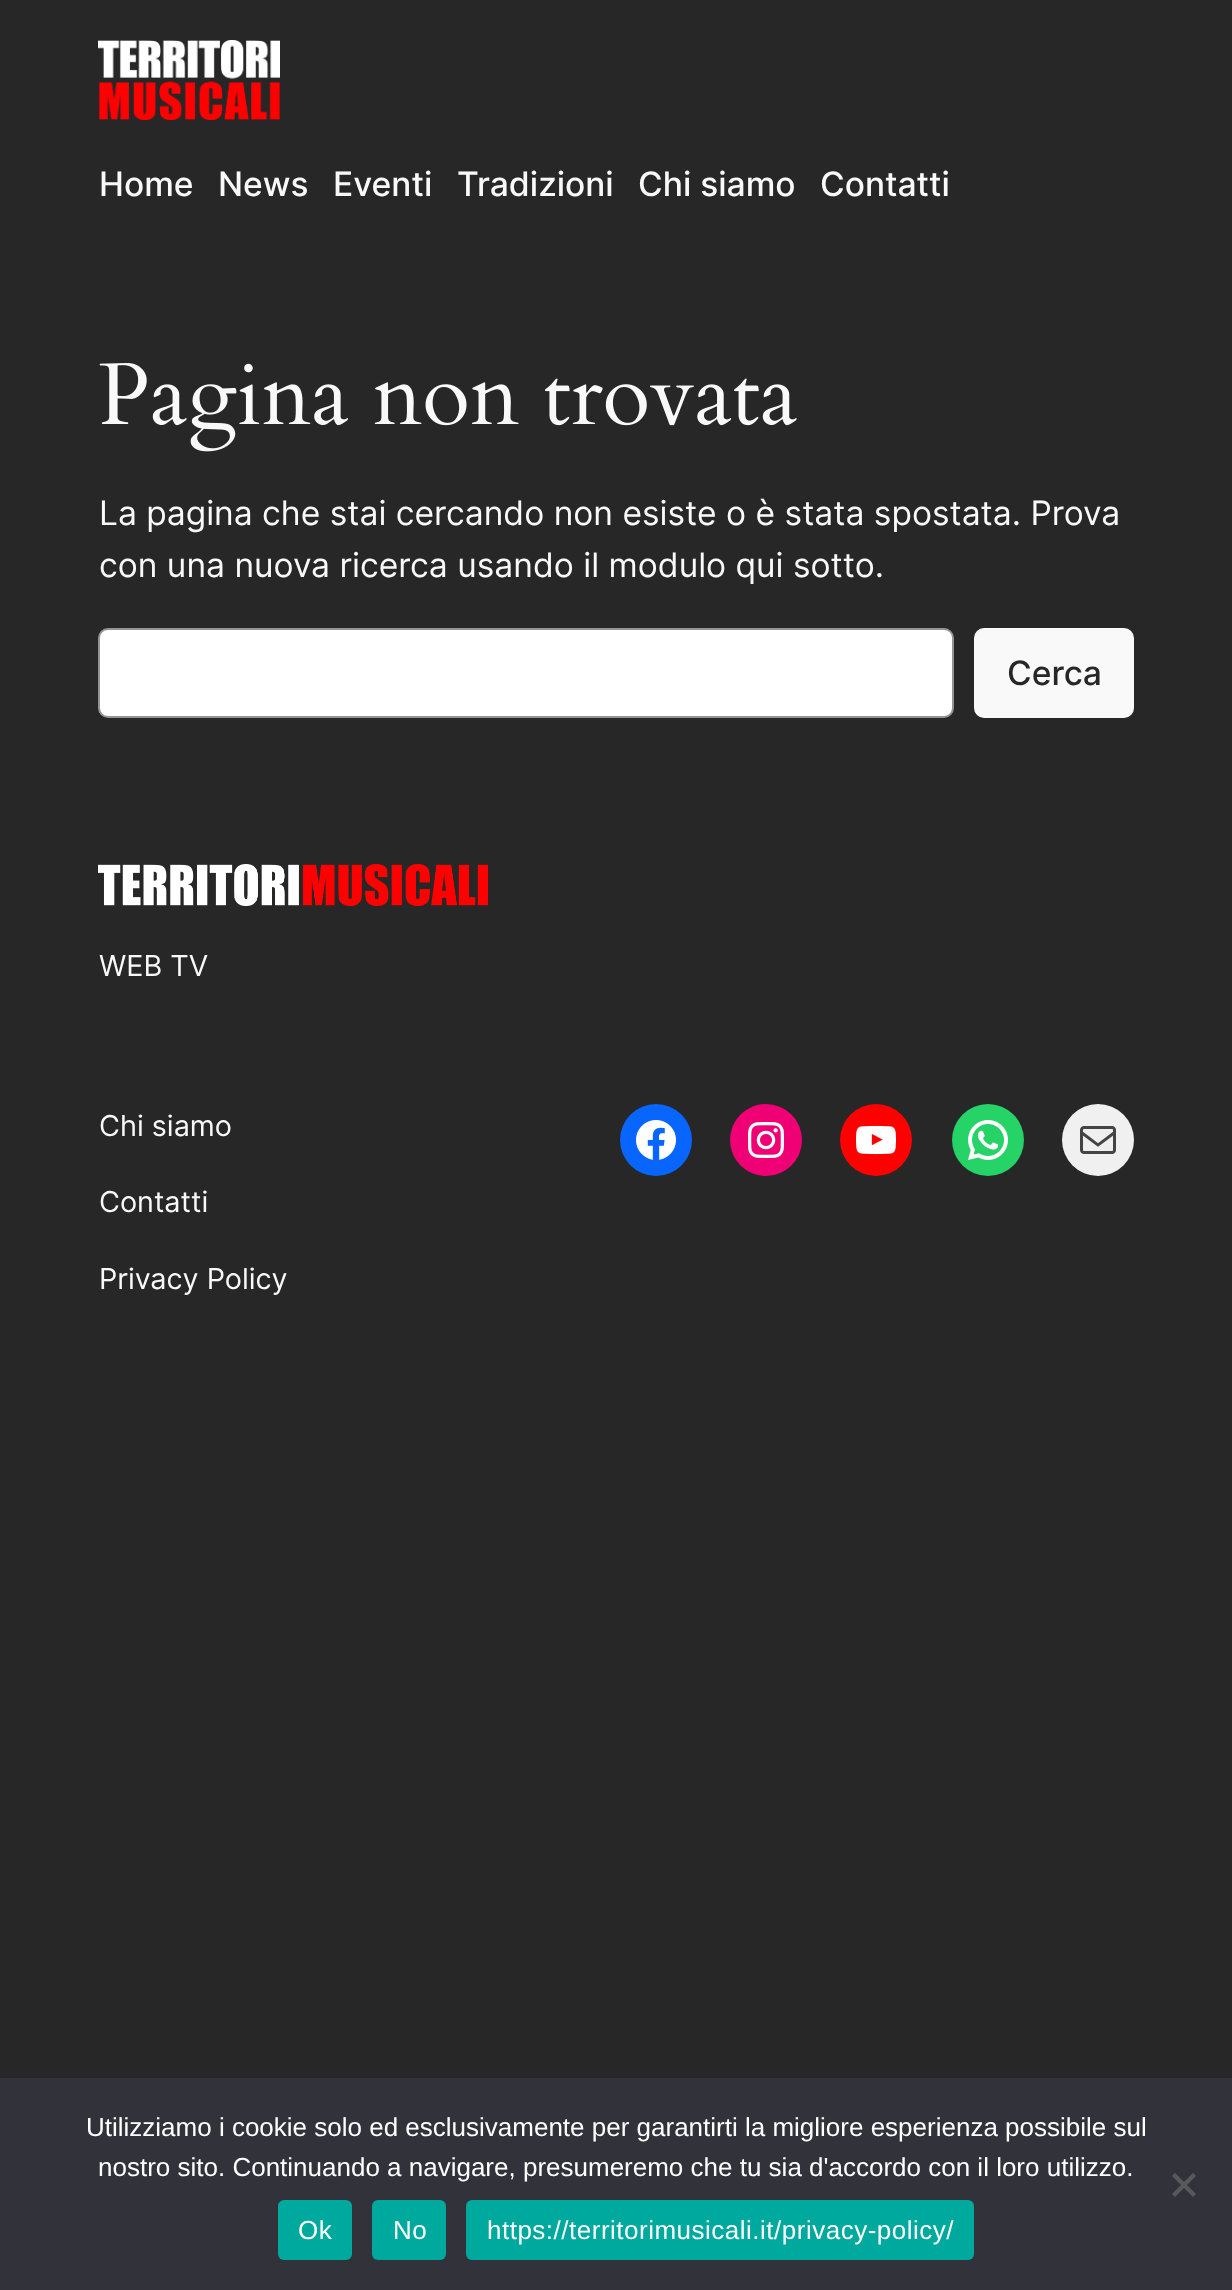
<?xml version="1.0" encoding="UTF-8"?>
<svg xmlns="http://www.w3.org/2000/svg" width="1232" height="2290">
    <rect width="100%" height="100%" fill="#272727"/>
    <image x="98" y="40" width="182" height="80" href="img_01.png"/>
    <text x="99" y="196" font-family="Inter" font-size="33.6" font-weight="500" fill="#F9F9F9">Home</text>
    <text x="218" y="196" font-family="Inter" font-size="33.6" font-weight="500" fill="#F9F9F9">News</text>
    <text x="333" y="196" font-family="Inter" font-size="33.6" font-weight="500" fill="#F9F9F9">Eventi</text>
    <text x="457" y="196" font-family="Inter" font-size="33.6" font-weight="500" fill="#F9F9F9">Tradizioni</text>
    <text x="638" y="196" font-family="Inter" font-size="33.6" font-weight="500" fill="#F9F9F9">Chi siamo</text>
    <text x="820" y="196" font-family="Inter" font-size="33.6" font-weight="500" fill="#F9F9F9">Contatti</text>
    <image x="99" y="363" width="698" height="89" href="img_02.png"/>
    <text font-family="Inter" font-size="33.6" fill="#F9F9F9">
        <tspan x="99" y="525">La pagina che stai cercando non esiste o è stata spostata. Prova</tspan>
        <tspan x="99" y="577">con una nuova ricerca usando il modulo qui sotto.</tspan>
    </text>
    <rect x="99" y="629" width="854" height="88" rx="9" fill="#FFFFFF" stroke="#949494" stroke-width="2"/>
    <rect x="974" y="628" width="160" height="90" rx="10" fill="#F9F9F9"/>
    <text x="1007" y="685" font-family="Inter" font-size="33.6" font-weight="500" fill="#272727">Cerca</text>
    <image x="98" y="864" width="390" height="42" href="img_03.png"/>
    <text x="99" y="976" font-family="Inter" font-size="28.75" fill="#F9F9F9">WEB TV</text>
    <text x="99" y="1136" font-family="Inter" font-size="28.75" fill="#F9F9F9">Chi siamo</text>
    <text x="99" y="1212" font-family="Inter" font-size="28.75" fill="#F9F9F9">Contatti</text>
    <text x="99" y="1289" font-family="Inter" font-size="28.75" fill="#F9F9F9">Privacy Policy</text>
    <circle cx="656" cy="1140" r="36" fill="#0866FF"/>
    <image x="636" y="1120" width="40" height="40" href="img_04.png"/>
    <circle cx="766" cy="1140" r="36" fill="#F00075"/>
    <image x="748" y="1122" width="36" height="36" href="img_05.png"/>
    <circle cx="876" cy="1140" r="36" fill="#FF0000"/>
    <image x="856" y="1125" width="40" height="30" href="img_06.png"/>
    <circle cx="988" cy="1140" r="36" fill="#25D366"/>
    <image x="968" y="1120" width="40" height="40" href="img_07.png"/>
    <circle cx="1098" cy="1140" r="36" fill="#F0F0F0"/>
    <image x="1080" y="1126" width="36" height="28" href="img_08.png"/>
    <rect x="0" y="2078" width="1232" height="212" fill="#32323A"/>
    <text x="86" y="2136" font-family="Liberation Sans" font-size="26" fill="#FFFFFF">Utilizziamo i cookie solo ed esclusivamente per garantirti la migliore esperienza possibile sul</text>
    <text x="98" y="2176" font-family="Liberation Sans" font-size="26" fill="#FFFFFF">nostro sito. Continuando a navigare, presumeremo che tu sia d'accordo con il loro utilizzo.</text>
    <path d="M 1193 2173 L 1196 2176 L 1175 2197 L 1172 2194 Z" fill="#59595D"/>
    <path d="M 1172 2176 L 1175 2173 L 1196 2194 L 1193 2197 Z" fill="#59595D"/>
    <rect x="278" y="2200" width="74" height="60" rx="6" fill="#00A99D"/>
    <text x="298" y="2239" font-family="Liberation Sans" font-size="26" letter-spacing="0.5" fill="#FFFFFF">Ok</text>
    <rect x="372" y="2200" width="74" height="60" rx="6" fill="#00A99D"/>
    <text x="393" y="2239" font-family="Liberation Sans" font-size="26" letter-spacing="0.5" fill="#FFFFFF">No</text>
    <rect x="466" y="2200" width="508" height="60" rx="6" fill="#00A99D"/>
    <text x="487" y="2239" font-family="Liberation Sans" font-size="26" letter-spacing="0.5" fill="#FFFFFF">https://territorimusicali.it/privacy-policy/</text>
</svg>
